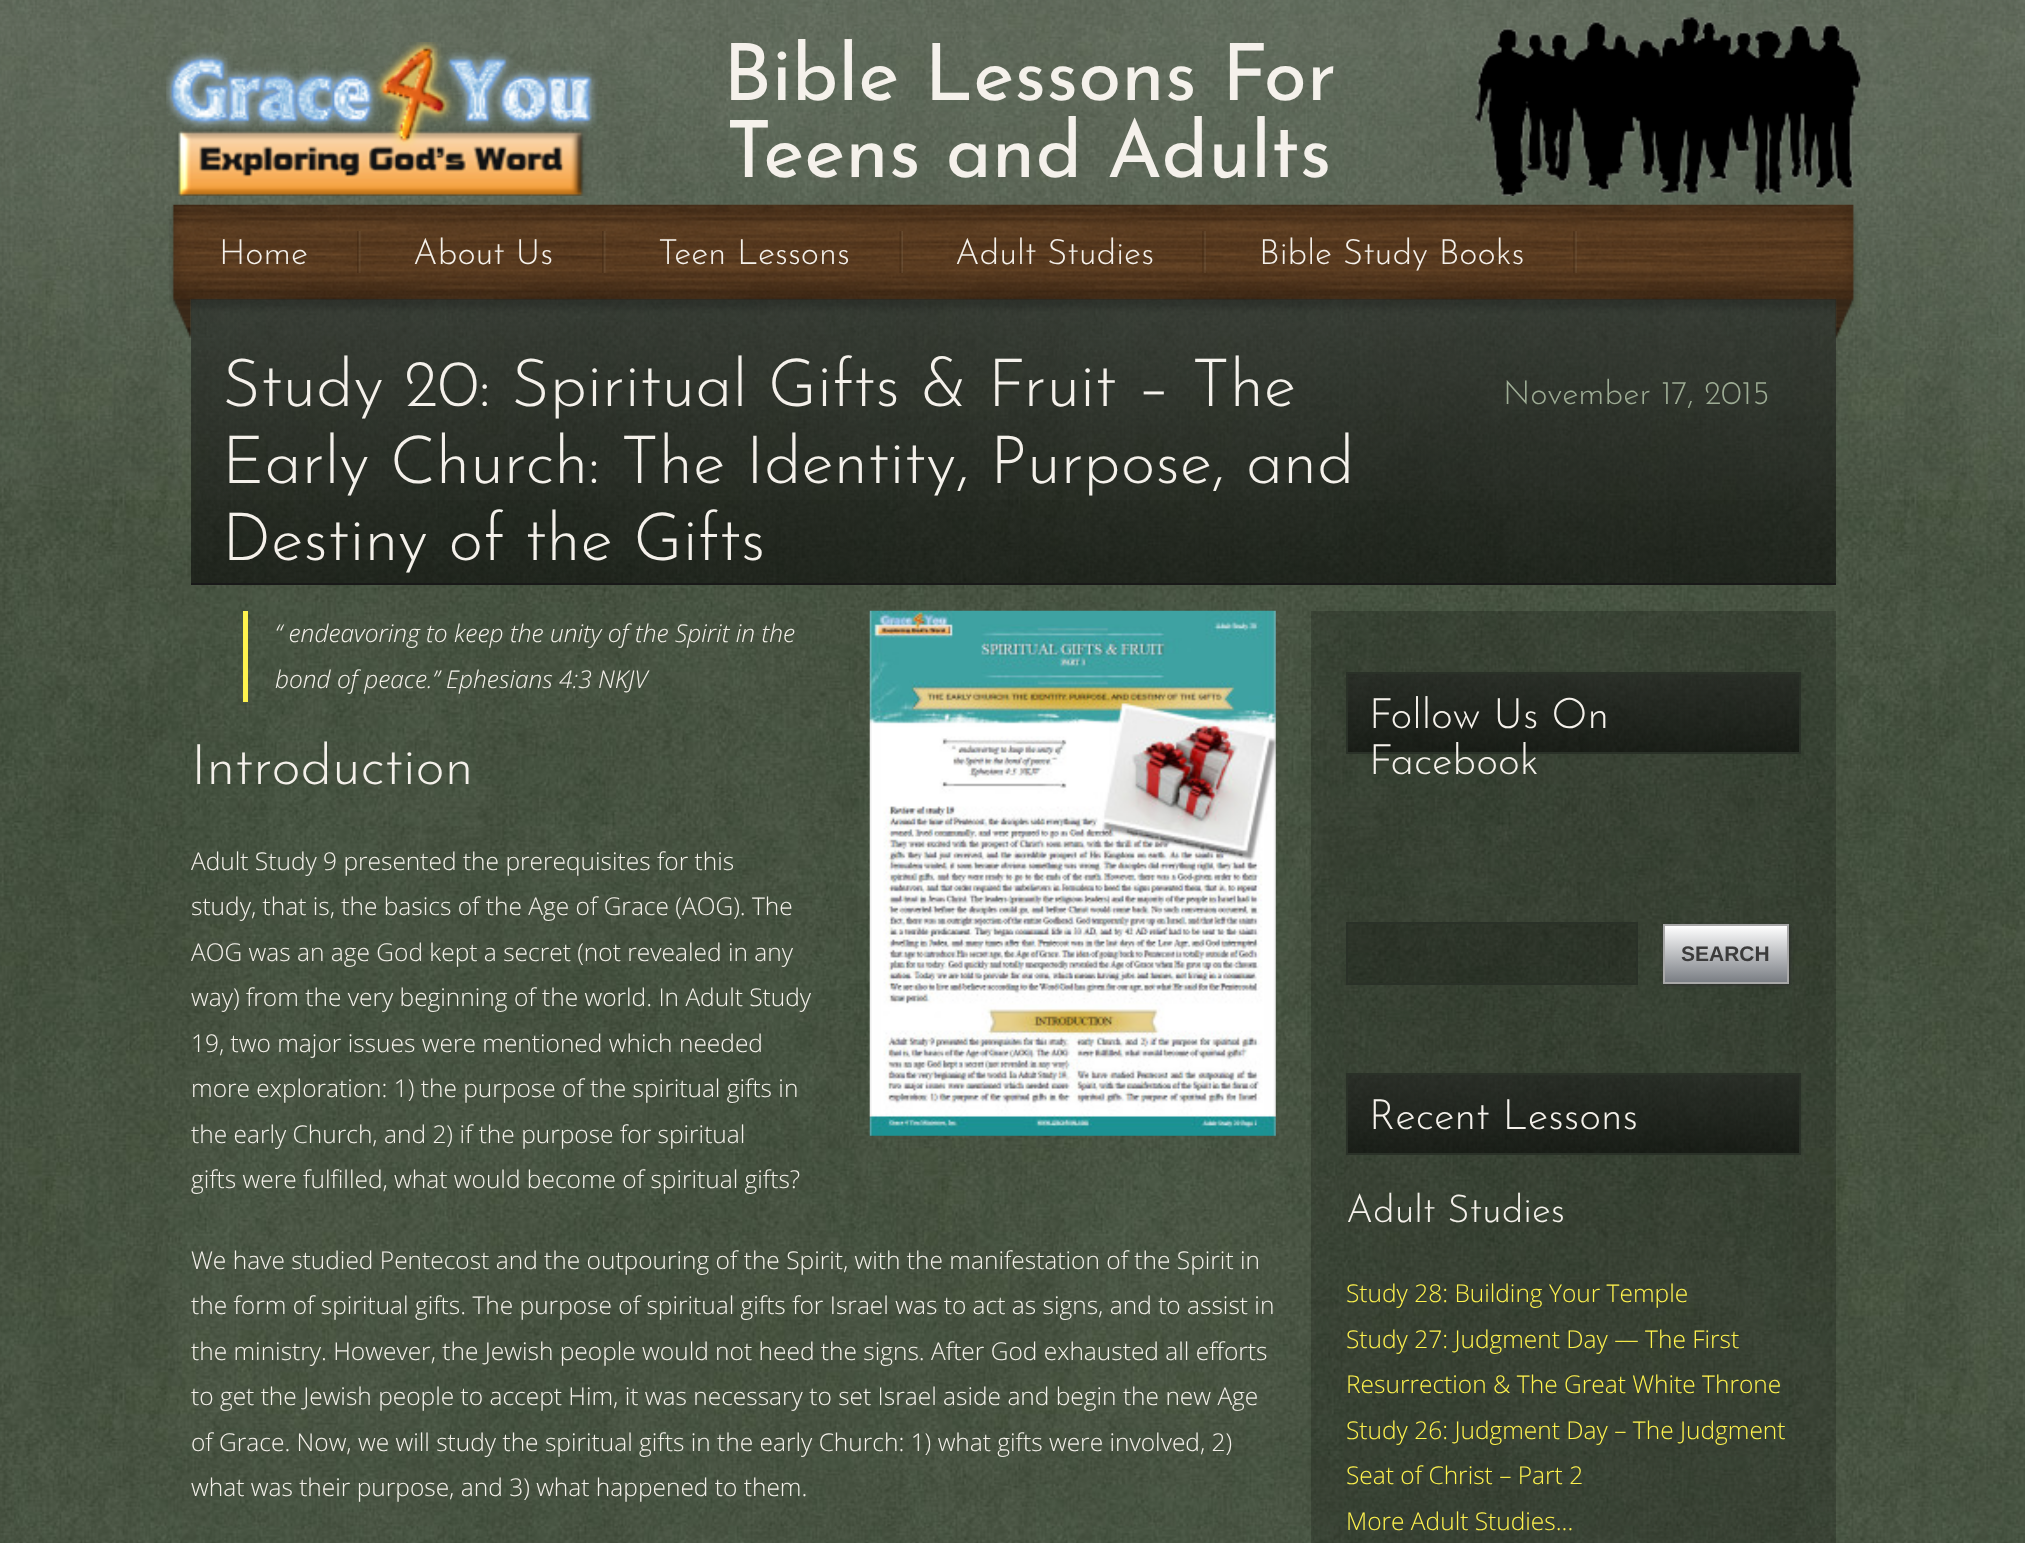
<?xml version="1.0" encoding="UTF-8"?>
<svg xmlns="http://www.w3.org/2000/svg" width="2025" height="1543">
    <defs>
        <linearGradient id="g1" gradientUnits="userSpaceOnUse" x1="191" y1="299" x2="191" y2="583"><stop offset="0" stop-color="#1A1A1A" stop-opacity="0.5"/><stop offset="1" stop-color="#000000" stop-opacity="0.55"/></linearGradient>
        <linearGradient id="g2" gradientUnits="userSpaceOnUse" x1="1348" y1="674" x2="1348" y2="753"><stop offset="0" stop-color="#1A1A1A" stop-opacity="0.5"/><stop offset="1" stop-color="#000000" stop-opacity="0.55"/></linearGradient>
        <filter id="blur1" x="-50%" y="-200%" width="200%" height="500%"><feGaussianBlur stdDeviation="2"/></filter>
        <linearGradient id="g3" gradientUnits="userSpaceOnUse" x1="1726" y1="926" x2="1726" y2="982"><stop offset="0" stop-color="#FFFFFF"/><stop offset="1" stop-color="#7A7E84"/></linearGradient>
        <linearGradient id="g4" gradientUnits="userSpaceOnUse" x1="1348" y1="1075" x2="1348" y2="1153"><stop offset="0" stop-color="#1A1A1A" stop-opacity="0.5"/><stop offset="1" stop-color="#000000" stop-opacity="0.55"/></linearGradient>
    </defs>
    <rect width="100%" height="100%" fill="#FFFFFF"/>
    <image x="0" y="0" width="2025" height="1543" href="img_01.png"/>
    <image x="0" y="0" width="2025" height="500" href="img_02.png"/>
    <image x="166" y="42" width="432" height="154" href="img_03.png"/>
    <text x="723" y="100" font-family="Josefin Sans" font-size="78.75" fill="#F5F1EB">Bible Lessons For</text>
    <text x="726" y="177" font-family="Josefin Sans" font-size="78.75" fill="#F5F1EB">Teens and Adults</text>
    <image x="1475" y="17" width="386" height="179" href="img_04.png"/>
    <image x="169" y="204" width="1689" height="134" href="img_05.png"/>
    <image x="357" y="231" width="4" height="42" href="img_06.png"/>
    <text x="219" y="264" font-family="Josefin Sans" font-size="35" font-weight="300" fill="#F5F1EB">Home</text>
    <image x="602" y="231" width="4" height="42" href="img_07.png"/>
    <text x="413" y="264" font-family="Josefin Sans" font-size="35" font-weight="300" fill="#F5F1EB">About Us</text>
    <image x="899" y="231" width="4" height="42" href="img_08.png"/>
    <text x="658" y="264" font-family="Josefin Sans" font-size="35" font-weight="300" fill="#F5F1EB">Teen Lessons</text>
    <image x="1202" y="231" width="4" height="42" href="img_09.png"/>
    <text x="955" y="264" font-family="Josefin Sans" font-size="35" font-weight="300" fill="#F5F1EB">Adult Studies</text>
    <image x="1573" y="231" width="4" height="42" href="img_10.png"/>
    <text x="1259" y="264" font-family="Josefin Sans" font-size="35" font-weight="300" fill="#F5F1EB">Bible Study Books</text>
    <rect x="191" y="299" width="1645" height="284" fill="url(#g1)"/>
    <rect x="191" y="583" width="1645" height="2" fill="#191919"/>
    <text font-family="Josefin Sans" font-size="66.5" font-weight="300" fill="#F5F1EB">
        <tspan x="222" y="406">Study 20: Spiritual Gifts &amp; Fruit – The</tspan>
        <tspan x="222" y="483">Early Church: The Identity, Purpose, and</tspan>
        <tspan x="222" y="560">Destiny of the Gifts</tspan>
    </text>
    <text x="1503" y="404" font-family="Josefin Sans" font-size="33.25" font-weight="300" fill="#9EAD95">November 17, 2015</text>
    <rect x="243" y="611" width="5" height="91" fill="#FFF34E"/>
    <text x="275" y="642" font-family="Open Sans" font-size="24.5" font-weight="300" font-style="italic" fill="#F5F1EB">“ endeavoring to keep the unity of the Spirit in the</text>
    <image x="869" y="610" width="407" height="526" href="img_11.png"/>
    <text x="275" y="688" font-family="Open Sans" font-size="24.5" font-weight="300" font-style="italic" fill="#F5F1EB">bond of peace.” Ephesians 4:3 NKJV</text>
    <text x="191" y="784" font-family="Josefin Sans" font-size="56" font-weight="300" fill="#F5F1EB">Introduction</text>
    <text font-family="Open Sans" font-size="24.5" font-weight="300" fill="#F5F1EB">
        <tspan x="191" y="870">Adult Study 9 presented the prerequisites for this</tspan>
        <tspan x="191" y="915">study, that is, the basics of the Age of Grace (AOG). The</tspan>
        <tspan x="191" y="961">AOG was an age God kept a secret (not revealed in any</tspan>
        <tspan x="191" y="1006">way) from the very beginning of the world. In Adult Study</tspan>
        <tspan x="191" y="1052">19, two major issues were mentioned which needed</tspan>
        <tspan x="191" y="1097">more exploration: 1) the purpose of the spiritual gifts in</tspan>
        <tspan x="191" y="1143">the early Church, and 2) if the purpose for spiritual</tspan>
        <tspan x="191" y="1188">gifts were fulfilled, what would become of spiritual gifts?</tspan>
    </text>
    <text font-family="Open Sans" font-size="24.5" font-weight="300" fill="#F5F1EB">
        <tspan x="191" y="1269">We have studied Pentecost and the outpouring of the Spirit, with the manifestation of the Spirit in</tspan>
        <tspan x="191" y="1314">the form of spiritual gifts. The purpose of spiritual gifts for Israel was to act as signs, and to assist in</tspan>
        <tspan x="191" y="1360">the ministry. However, the Jewish people would not heed the signs. After God exhausted all efforts</tspan>
        <tspan x="191" y="1405">to get the Jewish people to accept Him, it was necessary to set Israel aside and begin the new Age</tspan>
        <tspan x="191" y="1451">of Grace. Now, we will study the spiritual gifts in the early Church: 1) what gifts were involved, 2)</tspan>
        <tspan x="191" y="1496">what was their purpose, and 3) what happened to them.</tspan>
    </text>
    <rect x="1311" y="611" width="525" height="932" fill="#000000" fill-opacity="0.2"/>
    <rect x="1348" y="674" width="451" height="78" fill="url(#g2)"/>
    <rect x="1347" y="673" width="453" height="80" fill="none" stroke="#2A3128" stroke-width="2"/>
    <text font-family="Josefin Sans" font-size="42" font-weight="300" fill="#F5F1EB">
        <tspan x="1369" y="728">Follow Us On</tspan>
        <tspan x="1369" y="774">Facebook</tspan>
    </text>
    <rect x="1347" y="923" width="290" height="61" fill="#000000" fill-opacity="0.2" stroke="#2A3128" stroke-width="2"/>
    <rect x="1664" y="926" width="126" height="59" fill="#2F2F2F" filter="url(#blur1)"/>
    <rect x="1665" y="926" width="122" height="56" fill="url(#g3)"/>
    <rect x="1664" y="925" width="124" height="58" fill="none" stroke="#A8A8A8" stroke-width="2"/>
    <text x="1681" y="961" font-family="Liberation Sans" font-size="21" font-weight="700" fill="#3B3B3B">SEARCH</text>
    <rect x="1348" y="1075" width="451" height="78" fill="url(#g4)"/>
    <rect x="1347" y="1074" width="453" height="80" fill="none" stroke="#2A3128" stroke-width="2"/>
    <text x="1369" y="1129" font-family="Josefin Sans" font-size="42" font-weight="300" fill="#F5F1EB">Recent Lessons</text>
    <text x="1346" y="1222" font-family="Josefin Sans" font-size="38.5" font-weight="300" fill="#F5F1EB">Adult Studies</text>
    <text font-family="Open Sans" font-size="24.5" font-weight="300" fill="#FFF34E">
        <tspan x="1346" y="1302">Study 28: Building Your Temple</tspan>
        <tspan x="1346" y="1348">Study 27: Judgment Day — The First</tspan>
        <tspan x="1346" y="1393">Resurrection &amp; The Great White Throne</tspan>
        <tspan x="1346" y="1439">Study 26: Judgment Day – The Judgment</tspan>
        <tspan x="1346" y="1484">Seat of Christ – Part 2</tspan>
        <tspan x="1346" y="1530">More Adult Studies...</tspan>
    </text>
</svg>
